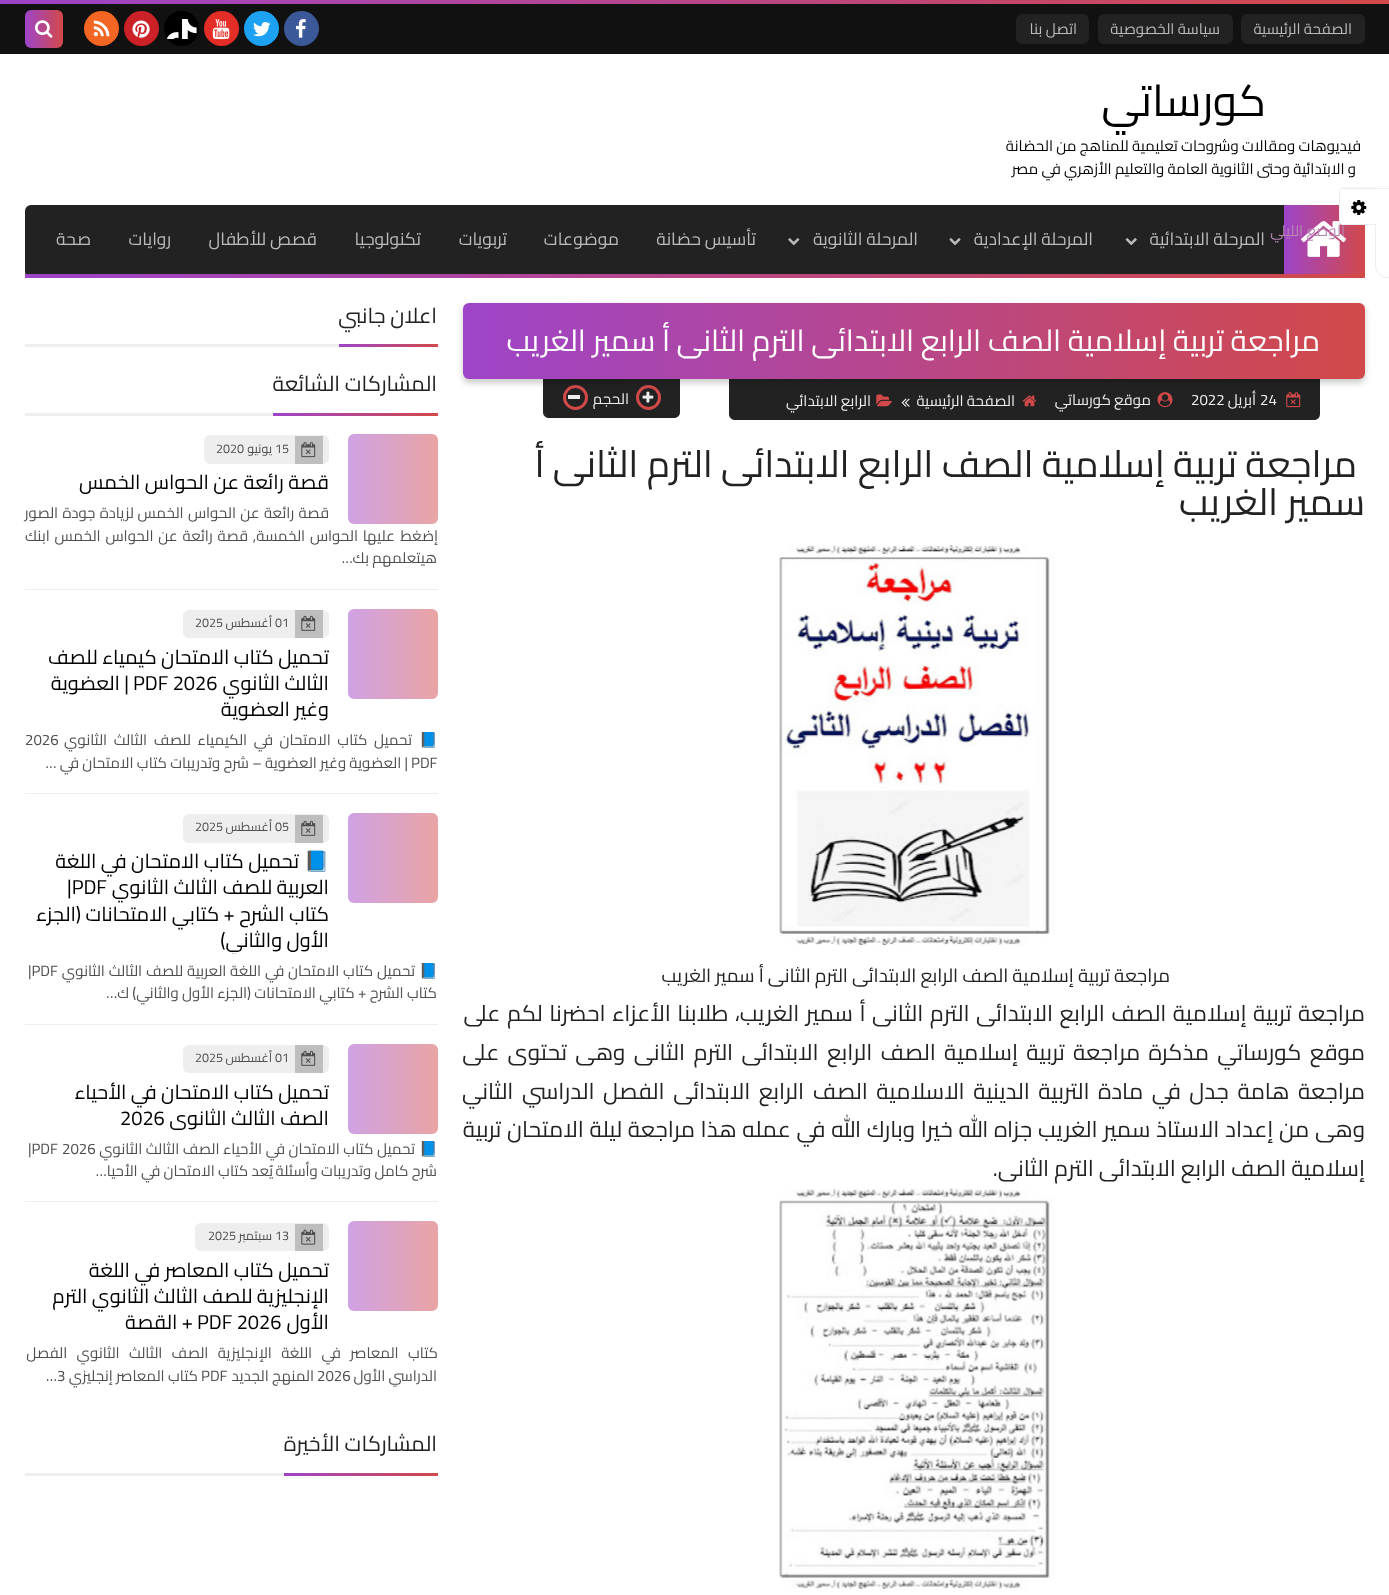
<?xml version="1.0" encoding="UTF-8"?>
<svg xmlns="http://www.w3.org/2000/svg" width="1389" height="1595">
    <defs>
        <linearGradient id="g1" gradientUnits="userSpaceOnUse" x1="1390" y1="1.9" x2="0" y2="1.9"><stop offset="0" stop-color="#D24949"/><stop offset="1" stop-color="#9E44C9"/></linearGradient>
        <linearGradient id="g2" gradientUnits="userSpaceOnUse" x1="63" y1="29" x2="25" y2="29"><stop offset="0" stop-color="#D24949"/><stop offset="1" stop-color="#9E44C9"/></linearGradient>
        <linearGradient id="g3" gradientUnits="userSpaceOnUse" x1="1365" y1="239" x2="1284" y2="239"><stop offset="0" stop-color="#D24949"/><stop offset="1" stop-color="#9E44C9"/></linearGradient>
        <linearGradient id="g4" gradientUnits="userSpaceOnUse" x1="1365" y1="276" x2="25" y2="276"><stop offset="0" stop-color="#D24949"/><stop offset="1" stop-color="#9E44C9"/></linearGradient>
        <filter id="blur1" x="-50%" y="-200%" width="200%" height="500%"><feGaussianBlur stdDeviation="3"/></filter>
        <linearGradient id="g5" gradientUnits="userSpaceOnUse" x1="1365" y1="341" x2="463" y2="341"><stop offset="0" stop-color="#D24949"/><stop offset="1" stop-color="#9E44C9"/></linearGradient>
        <linearGradient id="g6" gradientUnits="userSpaceOnUse" x1="438" y1="345" x2="339" y2="345"><stop offset="0" stop-color="#D24949"/><stop offset="1" stop-color="#9E44C9"/></linearGradient>
        <linearGradient id="g7" gradientUnits="userSpaceOnUse" x1="438" y1="414" x2="273" y2="414"><stop offset="0" stop-color="#D24949"/><stop offset="1" stop-color="#9E44C9"/></linearGradient>
        <linearGradient id="g8" gradientUnits="userSpaceOnUse" x1="438" y1="479" x2="348" y2="479"><stop offset="0" stop-color="#E9A4A4"/><stop offset="1" stop-color="#CFA2E4"/></linearGradient>
        <linearGradient id="g9" gradientUnits="userSpaceOnUse" x1="438" y1="654" x2="348" y2="654"><stop offset="0" stop-color="#E9A4A4"/><stop offset="1" stop-color="#CFA2E4"/></linearGradient>
        <linearGradient id="g10" gradientUnits="userSpaceOnUse" x1="438" y1="858" x2="348" y2="858"><stop offset="0" stop-color="#E9A4A4"/><stop offset="1" stop-color="#CFA2E4"/></linearGradient>
        <clipPath id="clip1"><rect x="25" y="849" width="304" height="105"/></clipPath>
        <linearGradient id="g11" gradientUnits="userSpaceOnUse" x1="438" y1="1089" x2="348" y2="1089"><stop offset="0" stop-color="#E9A4A4"/><stop offset="1" stop-color="#CFA2E4"/></linearGradient>
        <clipPath id="clip2"><rect x="25" y="1079" width="304" height="52"/></clipPath>
        <linearGradient id="g12" gradientUnits="userSpaceOnUse" x1="438" y1="1266" x2="348" y2="1266"><stop offset="0" stop-color="#E9A4A4"/><stop offset="1" stop-color="#CFA2E4"/></linearGradient>
        <linearGradient id="g13" gradientUnits="userSpaceOnUse" x1="438" y1="1474" x2="284" y2="1474"><stop offset="0" stop-color="#D24949"/><stop offset="1" stop-color="#9E44C9"/></linearGradient>
    </defs>
    <rect width="100%" height="100%" fill="#FFFFFF"/>
    <rect x="0" y="0" width="1389" height="4" fill="url(#g1)"/>
    <rect x="0" y="4" width="1389" height="50" fill="#111111"/>
    <rect x="1241" y="14" width="124" height="30" rx="6" fill="#222222"/>
    <text x="1352" y="34" font-family="Cairo" font-size="15" direction="rtl" fill="#BBBBBB">الصفحة الرئيسية</text>
    <rect x="1098" y="14" width="135" height="30" rx="6" fill="#222222"/>
    <text x="1220" y="34" font-family="Cairo" font-size="15" direction="rtl" fill="#BBBBBB">سياسة الخصوصية</text>
    <rect x="1016" y="14" width="73" height="30" rx="6" fill="#222222"/>
    <text x="1077" y="34" font-family="Cairo" font-size="15" direction="rtl" fill="#BBBBBB">اتصل بنا</text>
    <circle cx="301.5" cy="28.5" r="17.5" fill="#3B5998"/>
    <image x="296" y="19" width="10" height="19" href="img_01.png"/>
    <circle cx="261.5" cy="28.5" r="17.5" fill="#1DA1F2"/>
    <image x="253" y="22" width="18" height="15" href="img_02.png"/>
    <circle cx="221.5" cy="28.5" r="17.5" fill="#E52D27"/>
    <image x="212" y="19" width="18" height="21" href="img_03.png"/>
    <circle cx="181.5" cy="28.5" r="17.5" fill="#000000"/>
    <image x="167" y="19" width="30" height="20" href="img_04.png"/>
    <circle cx="141.5" cy="28.5" r="17.5" fill="#CC2127"/>
    <image x="132" y="20" width="18" height="18" href="img_05.png"/>
    <circle cx="101.5" cy="28.5" r="17.5" fill="#F26522"/>
    <image x="93" y="20" width="17" height="17" href="img_06.png"/>
    <rect x="25" y="10" width="38" height="38" rx="6" fill="url(#g2)"/>
    <image x="35" y="20" width="18" height="18" href="img_07.png"/>
    <text x="1266" y="116" font-family="Cairo" font-size="44" direction="rtl" fill="#000000">كورساتي</text>
    <text x="1361" y="151" font-family="Cairo" font-size="15" direction="rtl" fill="#000000">فيديوهات ومقالات وشروحات تعليمية للمناهج من الحضانة</text>
    <text x="1356" y="174" font-family="Cairo" font-size="15" direction="rtl" fill="#000000">و الابتدائية وحتى الثانوية العامة والتعليم الأزهري في مصر</text>
    <rect x="25" y="205" width="1340" height="73" rx="6" fill="#222222"/>
    <rect x="1284" y="205" width="81" height="69" fill="url(#g3)"/>
    <image x="1301" y="221" width="45" height="36" href="img_08.png"/>
    <text x="1265" y="245" font-family="Cairo" font-size="17.5" direction="rtl" fill="#BBBBBB">المرحلة الابتدائية</text>
    <image x="1125" y="238" width="12" height="8" href="img_09.png"/>
    <text x="1093" y="245" font-family="Cairo" font-size="17.5" direction="rtl" fill="#BBBBBB">المرحلة الإعدادية</text>
    <image x="949" y="238" width="12" height="8" href="img_10.png"/>
    <text x="918" y="245" font-family="Cairo" font-size="17.5" direction="rtl" fill="#BBBBBB">المرحلة الثانوية</text>
    <image x="788" y="238" width="12" height="8" href="img_11.png"/>
    <text x="756" y="245" font-family="Cairo" font-size="17.5" direction="rtl" fill="#BBBBBB">تأسيس حضانة</text>
    <text x="619" y="245" font-family="Cairo" font-size="17.5" direction="rtl" fill="#BBBBBB">موضوعات</text>
    <text x="507" y="245" font-family="Cairo" font-size="17.5" direction="rtl" fill="#BBBBBB">تربويات</text>
    <text x="421" y="245" font-family="Cairo" font-size="17.5" direction="rtl" fill="#BBBBBB">تكنولوجيا</text>
    <text x="317" y="245" font-family="Cairo" font-size="17.5" direction="rtl" fill="#BBBBBB">قصص للأطفال</text>
    <text x="171" y="245" font-family="Cairo" font-size="17.5" direction="rtl" fill="#BBBBBB">روايات</text>
    <text x="91" y="245" font-family="Cairo" font-size="17.5" direction="rtl" fill="#BBBBBB">صحة</text>
    <rect x="25" y="274" width="1340" height="4" fill="url(#g4)"/>
    <path d="M 729 379 H 1320 V 414 C 1320 417.5 1317.5 420 1314 420 H 735 C 731.5 420 729 417.5 729 414 Z" fill="#222222"/>
    <image x="1286" y="392" width="15" height="16" href="img_12.png"/>
    <image x="1157" y="392" width="16" height="16" href="img_13.png"/>
    <path d="M 543 379 H 680 V 412 C 680 415.5 677.5 418 674 418 H 549 C 545.5 418 543 415.5 543 412 Z" fill="#222222"/>
    <circle cx="648.5" cy="397.5" r="11" fill="none" stroke="#D24949" stroke-width="3"/>
    <image x="642" y="391" width="12" height="12" href="img_17.png"/>
    <circle cx="575.5" cy="397.5" r="11" fill="none" stroke="#D24949" stroke-width="3"/>
    <rect x="463" y="306" width="902" height="77" rx="6" fill="#000000" fill-opacity="0.2" filter="url(#blur1)"/>
    <rect x="463" y="303" width="902" height="76" rx="6" fill="url(#g5)"/>
    <text x="1320" y="351" font-family="Cairo" font-size="30" direction="rtl" fill="#FFFFFF">مراجعة تربية إسلامية الصف الرابع الابتدائى الترم الثانى أ سمير الغريب</text>
    <text x="1260" y="405" font-family="Cairo" font-size="15" fill="#EEEEEE">24</text>
    <text x="1256" y="405" font-family="Cairo" font-size="15" direction="rtl" fill="#EEEEEE">أبريل</text>
    <text x="1191" y="405" font-family="Cairo" font-size="15" fill="#EEEEEE">2022</text>
    <text x="1151" y="405" font-family="Cairo" font-size="15" direction="rtl" fill="#EEEEEE">موقع كورساتي</text>
    <image x="1022" y="395" width="15" height="12" href="img_14.png"/>
    <text x="1015" y="406" font-family="Cairo" font-size="15" direction="rtl" fill="#EEEEEE">الصفحة الرئيسية</text>
    <image x="901" y="398" width="9" height="9" href="img_15.png"/>
    <image x="876" y="394" width="16" height="13" href="img_16.png"/>
    <text x="871" y="406" font-family="Cairo" font-size="15" direction="rtl" fill="#EEEEEE">الرابع الابتدائي</text>
    <text x="629" y="404" font-family="Cairo" font-size="15" direction="rtl" fill="#EEEEEE">الحجم</text>
    <rect x="568" y="395" width="12" height="4" fill="#EEEEEE"/>
    <text x="1357" y="477" font-family="Cairo" font-size="37.5" direction="rtl" fill="#222222">مراجعة تربية إسلامية الصف الرابع الابتدائى الترم الثانى أ</text>
    <text x="1365" y="515" font-family="Cairo" font-size="37.5" direction="rtl" fill="#222222">سمير الغريب</text>
    <image x="779" y="545" width="276" height="400" href="img_18.png"/>
    <text x="1170" y="982" font-family="Cairo" font-size="18.75" direction="rtl" fill="#222222">مراجعة تربية إسلامية الصف الرابع الابتدائى الترم الثانى أ سمير الغريب</text>
    <text font-family="Cairo" font-size="22.5" direction="rtl" fill="#222222">
        <tspan x="1365" y="1021" word-spacing="1.5">مراجعة تربية إسلامية الصف الرابع الابتدائى الترم الثانى أ سمير الغريب، طلابنا الأعزاء احضرنا لكم على</tspan>
        <tspan x="1365" y="1060" word-spacing="3.4">موقع كورساتي مذكرة مراجعة تربية إسلامية الصف الرابع الابتدائى الترم الثانى وهى تحتوى على</tspan>
        <tspan x="1365" y="1099" word-spacing="3.6">مراجعة هامة جدل في مادة التربية الدينية الاسلامية الصف الرابع الابتدائى الفصل الدراسي الثاني</tspan>
        <tspan x="1365" y="1137" word-spacing="0.75">وهى من إعداد الاستاذ سمير الغريب جزاه الله خيرا وبارك الله في عمله هذا مراجعة ليلة الامتحان تربية</tspan>
        <tspan x="1365" y="1176">إسلامية الصف الرابع الابتدائى الترم الثانى.</tspan>
    </text>
    <image x="779" y="1188" width="276" height="401" href="img_19.png"/>
    <rect x="25" y="344" width="314" height="3" fill="#EEEEEE"/>
    <text x="437" y="323" font-family="Cairo" font-size="21.25" direction="rtl" fill="#222222">اعلان جانبي</text>
    <rect x="339" y="344" width="99" height="3" fill="url(#g6)"/>
    <rect x="25" y="413" width="248" height="3" fill="#EEEEEE"/>
    <text x="437" y="391" font-family="Cairo" font-size="21.25" direction="rtl" fill="#222222">المشاركات الشائعة</text>
    <rect x="273" y="413" width="165" height="3" fill="url(#g7)"/>
    <rect x="25" y="589" width="413" height="1" fill="#EEEEEE"/>
    <rect x="348" y="434" width="90" height="90" rx="6" fill="url(#g8)"/>
    <rect x="204" y="435" width="125" height="29" rx="6" fill="#EEEEEE"/>
    <rect x="295" y="436" width="28" height="28" fill="#BEBEBE"/>
    <image x="301" y="442" width="15" height="16" href="img_20.png"/>
    <text x="275" y="453" font-family="Cairo" font-size="12.5" fill="#4F4F4F">15</text>
    <text x="272" y="453" font-family="Cairo" font-size="12.5" direction="rtl" fill="#4F4F4F">يونيو</text>
    <text x="216" y="453" font-family="Cairo" font-size="12.5" fill="#4F4F4F">2020</text>
    <text x="329" y="489" font-family="Cairo" font-size="20" direction="rtl" fill="#000000">قصة رائعة عن الحواس الخمس</text>
    <text x="329" y="518" word-spacing="1" font-family="Cairo" font-size="15" direction="rtl" fill="#4F4F4F">قصة رائعة عن الحواس الخمس</text>
    <text x="134" y="518" word-spacing="1" font-family="Cairo" font-size="15" direction="rtl" fill="#4F4F4F">لزيادة جودة الصور</text>
    <text x="438" y="541" word-spacing="2" font-family="Cairo" font-size="15" direction="rtl" fill="#4F4F4F">إضغط عليها</text>
    <text x="358" y="541" word-spacing="1.5" font-family="Cairo" font-size="15" direction="rtl" fill="#4F4F4F">الحواس الخمسة, قصة رائعة عن الحواس الخمس ابنك</text>
    <text x="437" y="563" font-family="Cairo" font-size="15" direction="rtl" fill="#4F4F4F">هيتعلمهم بك…</text>
    <rect x="25" y="793" width="413" height="1" fill="#EEEEEE"/>
    <rect x="348" y="609" width="90" height="90" rx="6" fill="url(#g9)"/>
    <rect x="183" y="610" width="146" height="28" rx="6" fill="#EEEEEE"/>
    <rect x="295" y="610" width="28" height="28" fill="#BEBEBE"/>
    <image x="301" y="615" width="15" height="16" href="img_21.png"/>
    <text x="275" y="627" font-family="Cairo" font-size="12.5" fill="#4F4F4F">01</text>
    <text x="272" y="627" font-family="Cairo" font-size="12.5" direction="rtl" fill="#4F4F4F">أغسطس</text>
    <text x="195" y="627" font-family="Cairo" font-size="12.5" fill="#4F4F4F">2025</text>
    <text font-family="Cairo" font-size="20" direction="rtl" fill="#000000">
        <tspan x="329" y="664">تحميل كتاب الامتحان كيمياء للصف</tspan>
        <tspan x="329" y="690">الثالث الثانوي</tspan>
    </text>
    <text x="133" y="690" font-family="Cairo" font-size="20" fill="#000000">PDF 2026</text>
    <text x="129" y="690" font-family="Cairo" font-size="20" direction="rtl" fill="#000000">| العضوية</text>
    <text x="329" y="716" font-family="Cairo" font-size="20" direction="rtl" fill="#000000">وغير العضوية</text>
    <text x="438" y="745" font-family="Noto Color Emoji" font-size="15" direction="rtl" fill="#4F4F4F">📘</text>
    <text x="412" y="745" word-spacing="3.25" font-family="Cairo" font-size="15" direction="rtl" fill="#4F4F4F">تحميل كتاب الامتحان في الكيمياء للصف الثالث الثانوي</text>
    <text x="25" y="745" font-family="Cairo" font-size="15" fill="#4F4F4F">2026</text>
    <text x="411" y="768" font-family="Cairo" font-size="15" fill="#4F4F4F">PDF</text>
    <text x="408" y="768" font-family="Cairo" font-size="15" direction="rtl" fill="#4F4F4F">| العضوية وغير العضوية – شرح وتدريبات كتاب الامتحان في …</text>
    <rect x="25" y="1024" width="413" height="1" fill="#EEEEEE"/>
    <rect x="348" y="813" width="90" height="90" rx="6" fill="url(#g10)"/>
    <rect x="183" y="814" width="146" height="29" rx="6" fill="#EEEEEE"/>
    <rect x="295" y="815" width="28" height="28" fill="#BEBEBE"/>
    <image x="301" y="820" width="15" height="16" href="img_21.png"/>
    <text x="275" y="831" font-family="Cairo" font-size="12.5" fill="#4F4F4F">05</text>
    <text x="272" y="831" font-family="Cairo" font-size="12.5" direction="rtl" fill="#4F4F4F">أغسطس</text>
    <text x="195" y="831" font-family="Cairo" font-size="12.5" fill="#4F4F4F">2025</text>
    <text x="329" y="868" font-family="Noto Color Emoji" font-size="20" font-weight="700" direction="rtl" fill="#000000">📘</text>
    <text x="299" y="868" font-family="Cairo" font-size="20" direction="rtl" fill="#000000">تحميل كتاب الامتحان في اللغة</text>
    <text x="329" y="894" font-family="Cairo" font-size="20" direction="rtl" fill="#000000">العربية للصف الثالث الثانوي</text>
    <text x="67" y="894" font-family="Cairo" font-size="20" fill="#000000">|PDF</text>
    <text x="329" y="921" font-family="Cairo" font-size="20" direction="rtl" fill="#000000">كتاب الشرح + كتابي الامتحانات (الجزء</text>
    <g clip-path="url(#clip1)">
        <text x="329" y="947" font-family="Cairo" font-size="20" direction="rtl" fill="#000000">الأول والثاني)</text>
    </g>
    <text x="438" y="976" font-family="Noto Color Emoji" font-size="15" direction="rtl" fill="#4F4F4F">📘</text>
    <text x="415" y="976" word-spacing="0.5" font-family="Cairo" font-size="15" direction="rtl" fill="#4F4F4F">تحميل كتاب الامتحان في اللغة العربية للصف الثالث الثانوي</text>
    <text x="28" y="976" font-family="Cairo" font-size="15" fill="#4F4F4F">|PDF</text>
    <text x="437" y="998" font-family="Cairo" font-size="15" direction="rtl" fill="#4F4F4F">كتاب الشرح + كتابي الامتحانات (الجزء الأول والثاني) ك…</text>
    <rect x="25" y="1201" width="413" height="1" fill="#EEEEEE"/>
    <rect x="348" y="1044" width="90" height="90" rx="6" fill="url(#g11)"/>
    <rect x="183" y="1045" width="146" height="28" rx="6" fill="#EEEEEE"/>
    <rect x="295" y="1045" width="28" height="28" fill="#BEBEBE"/>
    <image x="301" y="1050" width="15" height="16" href="img_21.png"/>
    <text x="275" y="1062" font-family="Cairo" font-size="12.5" fill="#4F4F4F">01</text>
    <text x="272" y="1062" font-family="Cairo" font-size="12.5" direction="rtl" fill="#4F4F4F">أغسطس</text>
    <text x="195" y="1062" font-family="Cairo" font-size="12.5" fill="#4F4F4F">2025</text>
    <text x="329" y="1099" font-family="Cairo" font-size="20" direction="rtl" fill="#000000">تحميل كتاب الامتحان في الأحياء</text>
    <g clip-path="url(#clip2)">
        <text x="329" y="1125" font-family="Cairo" font-size="20" direction="rtl" fill="#000000">الصف الثالث الثانوي</text>
    </g>
    <text x="120" y="1125" font-family="Cairo" font-size="20" fill="#000000">2026</text>
    <text x="438" y="1154" font-family="Noto Color Emoji" font-size="15" direction="rtl" fill="#4F4F4F">📘</text>
    <text x="415" y="1154" word-spacing="0.25" font-family="Cairo" font-size="15" direction="rtl" fill="#4F4F4F">تحميل كتاب الامتحان في الأحياء الصف الثالث الثانوي</text>
    <text x="62" y="1154" font-family="Cairo" font-size="15" fill="#4F4F4F">2026</text>
    <text x="28" y="1154" font-family="Cairo" font-size="15" fill="#4F4F4F">|PDF</text>
    <text x="437" y="1176" font-family="Cairo" font-size="15" direction="rtl" fill="#4F4F4F">شرح كامل وتدريبات وأسئلة</text>
    <text x="273" y="1176" font-family="Cairo" font-size="15" direction="rtl" fill="#4F4F4F">يُعد كتاب الامتحان في الأحيا…</text>
    <rect x="348" y="1221" width="90" height="90" rx="6" fill="url(#g12)"/>
    <rect x="195" y="1223" width="134" height="28" rx="6" fill="#EEEEEE"/>
    <rect x="295" y="1224" width="28" height="27" fill="#BEBEBE"/>
    <image x="301" y="1229" width="15" height="16" href="img_22.png"/>
    <text x="275" y="1240" font-family="Cairo" font-size="12.5" fill="#4F4F4F">13</text>
    <text x="272" y="1240" font-family="Cairo" font-size="12.5" direction="rtl" fill="#4F4F4F">سبتمبر</text>
    <text x="208" y="1240" font-family="Cairo" font-size="12.5" fill="#4F4F4F">2025</text>
    <text font-family="Cairo" font-size="20" direction="rtl" fill="#000000">
        <tspan x="329" y="1277">تحميل كتاب المعاصر في اللغة</tspan>
        <tspan x="329" y="1303">الإنجليزية للصف الثالث الثانوي الترم</tspan>
        <tspan x="329" y="1329">الأول</tspan>
    </text>
    <text x="197" y="1329" font-family="Cairo" font-size="20" fill="#000000">PDF 2026</text>
    <text x="193" y="1329" font-family="Cairo" font-size="20" direction="rtl" fill="#000000">+ القصة</text>
    <text x="438" y="1358" word-spacing="6" font-family="Cairo" font-size="15" direction="rtl" fill="#4F4F4F">كتاب المعاصر في اللغة الإنجليزية الصف الثالث الثانوي الفصل</text>
    <text x="437" y="1381" font-family="Cairo" font-size="15" direction="rtl" fill="#4F4F4F">الدراسي الأول</text>
    <text x="317" y="1381" font-family="Cairo" font-size="15" fill="#4F4F4F">2026</text>
    <text x="314" y="1381" font-family="Cairo" font-size="15" direction="rtl" fill="#4F4F4F">المنهج الجديد</text>
    <text x="201" y="1381" font-family="Cairo" font-size="15" fill="#4F4F4F">PDF</text>
    <text x="198" y="1381" font-family="Cairo" font-size="15" direction="rtl" fill="#4F4F4F">كتاب المعاصر إنجليزي</text>
    <text x="46" y="1381" font-family="Cairo" font-size="15" fill="#4F4F4F">…3</text>
    <rect x="25" y="1473" width="259" height="3" fill="#EEEEEE"/>
    <text x="437" y="1451" font-family="Cairo" font-size="21.25" direction="rtl" fill="#222222">المشاركات الأخيرة</text>
    <rect x="284" y="1473" width="154" height="3" fill="url(#g13)"/>
    <path d="M 1375.5 188.5 H 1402.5 V 277.5 H 1388 C 1381 277.5 1375.5 272 1375.5 265 Z" fill="none" stroke="#EEEEEE"/>
    <path d="M 1343 188 H 1376 V 225 H 1343 C 1341 225 1339 223 1339 221 V 192 C 1339 190 1341 188 1343 188 Z" fill="#FFFFFF"/>
    <path d="M 1342.5 187.5 H 1376 V 225 H 1342.5 C 1340.5 225 1339 223.5 1339 221 V 191 C 1339 189 1340.5 187.5 1342.5 187.5 Z M 1342.5 189 H 1376 V 224 H 1342.5 C 1341 224 1340 222.5 1340 221 V 191 C 1340 190 1341 189 1342.5 189 Z" fill="#EEEEEE" fill-rule="evenodd"/>
    <image x="1351" y="200" width="16" height="15" href="img_23.png"/>
    <text x="1345" y="236" font-family="Cairo" font-size="15" direction="rtl" fill="#B686B2">الوضع الليلي</text>
</svg>
